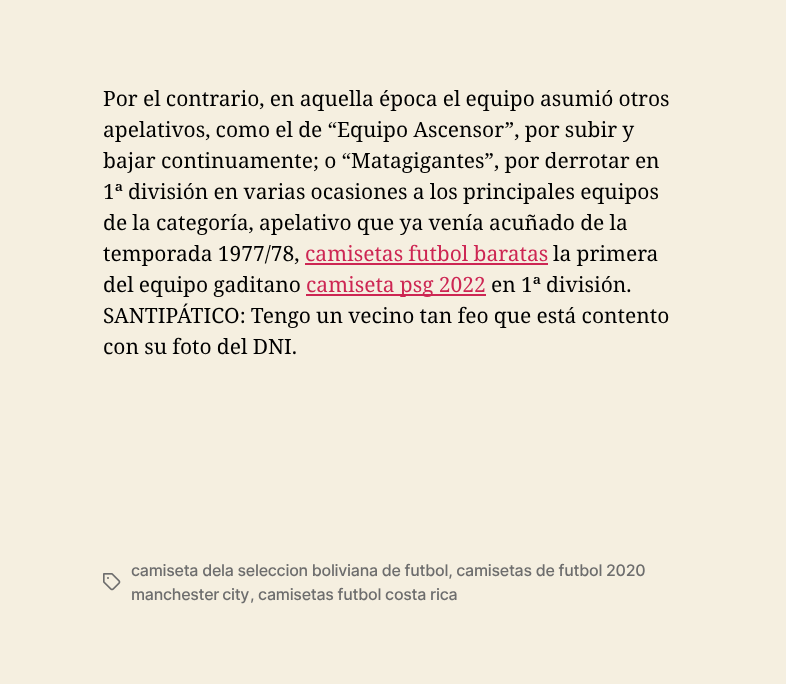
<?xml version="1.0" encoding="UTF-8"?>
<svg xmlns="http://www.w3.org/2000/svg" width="786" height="684">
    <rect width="100%" height="100%" fill="#F5EFE0"/>
    <text font-family="Noto Serif" font-size="21" fill="#000000">
        <tspan x="103" y="106" word-spacing="-0.25">Por el contrario, en aquella época el equipo asumió otros</tspan>
        <tspan x="103" y="137" word-spacing="-0.25">apelativos, como el de “Equipo Ascensor”, por subir y</tspan>
        <tspan x="103" y="168" word-spacing="-0.25">bajar continuamente; o “Matagigantes”, por derrotar en</tspan>
        <tspan x="103" y="199" word-spacing="-0.25">1ª división en varias ocasiones a los principales equipos</tspan>
        <tspan x="103" y="230" word-spacing="-0.25">de la categoría, apelativo que ya venía acuñado de la</tspan>
        <tspan x="103" y="261" word-spacing="-0.25">temporada 1977/78,</tspan>
    </text>
    <text x="305" y="261" word-spacing="-0.25" font-family="Noto Serif" font-size="21" fill="#CD2653">camisetas futbol baratas</text>
    <rect x="305" y="263" width="243" height="2" fill="#CD2653"/>
    <text x="553" y="261" word-spacing="-0.25" font-family="Noto Serif" font-size="21" fill="#000000">la primera</text>
    <text x="103" y="292" word-spacing="-0.25" font-family="Noto Serif" font-size="21" fill="#000000">del equipo gaditano</text>
    <rect x="306" y="294" width="180" height="2" fill="#CD2653"/>
    <text x="306" y="292" word-spacing="-0.25" font-family="Noto Serif" font-size="21" fill="#CD2653">camiseta psg 2022</text>
    <text x="491" y="292" word-spacing="-0.25" font-family="Noto Serif" font-size="21" fill="#000000">en 1ª división.</text>
    <text font-family="Noto Serif" font-size="21" fill="#000000">
        <tspan x="103" y="323" word-spacing="-0.25">SANTIPÁTICO: Tengo un vecino tan feo que está contento</tspan>
        <tspan x="103" y="354" word-spacing="-0.25">con su foto del DNI.</tspan>
    </text>
    <image x="103" y="573" width="18" height="18" href="img_01.png"/>
    <text font-family="Inter" font-size="16" font-weight="500" letter-spacing="-0.27" fill="#6D6D6D">
        <tspan x="131" y="576">camiseta dela seleccion boliviana de futbol, camisetas de futbol 2020</tspan>
        <tspan x="131" y="600" word-spacing="-1">manchester city</tspan>
    </text>
    <text x="250" y="600" font-family="Inter" font-size="16" font-weight="500" letter-spacing="-0.27" fill="#6D6D6D">, camisetas futbol costa rica</text>
</svg>
